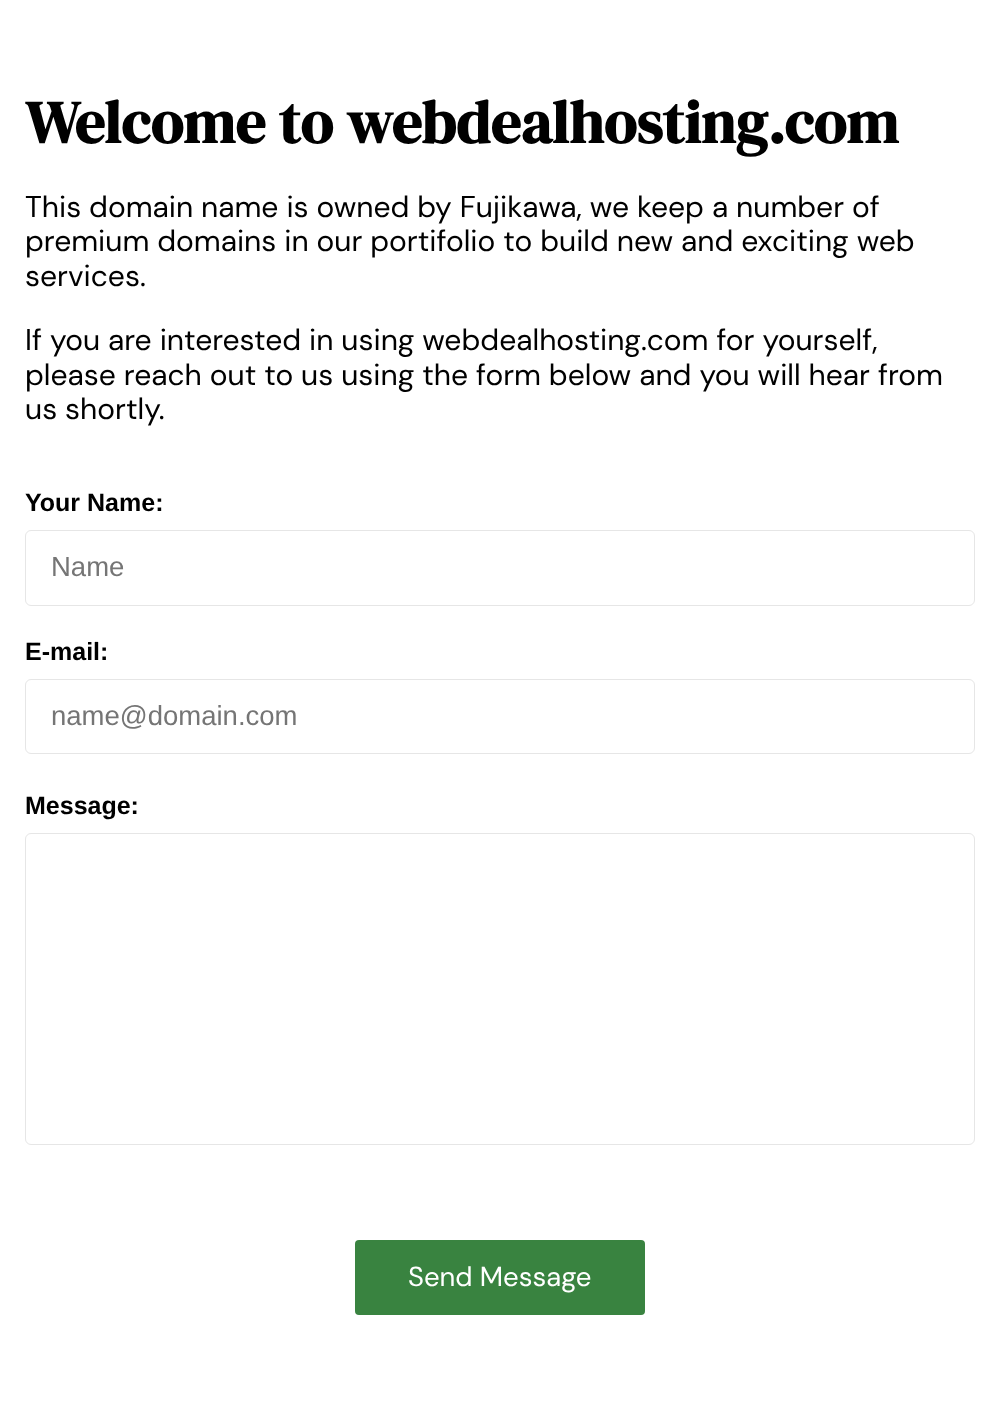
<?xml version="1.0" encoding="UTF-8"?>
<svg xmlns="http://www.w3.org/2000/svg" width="999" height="1408">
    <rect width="100%" height="100%" fill="#FFFFFF"/>
    <text x="25" y="143" font-family="DM Serif Display" font-size="60" font-weight="700" fill="#000000">Welcome to webdealhosting.com</text>
    <text font-family="DM Sans" font-size="30" fill="#000000">
        <tspan x="25" y="217">This domain name is owned by Fujikawa, we keep a number of</tspan>
        <tspan x="25" y="251">premium domains in our portifolio to build new and exciting web</tspan>
        <tspan x="25" y="286">services.</tspan>
    </text>
    <text font-family="DM Sans" font-size="30" fill="#000000">
        <tspan x="25" y="350">If you are interested in using webdealhosting.com for yourself,</tspan>
        <tspan x="25" y="385">please reach out to us using the form below and you will hear from</tspan>
        <tspan x="25" y="419">us shortly.</tspan>
    </text>
    <text x="25" y="511" font-family="Liberation Sans" font-size="25" font-weight="700" fill="#000000">Your Name:</text>
    <rect x="25.5" y="530.5" width="949" height="75" rx="5.5" fill="none" stroke="#E6E6E6"/>
    <text x="51" y="576" font-family="Liberation Sans" font-size="27.5" fill="#757575">Name</text>
    <text x="25" y="660" font-family="Liberation Sans" font-size="25" font-weight="700" fill="#000000">E-mail:</text>
    <rect x="25.5" y="679.5" width="949" height="74" rx="5.5" fill="none" stroke="#E6E6E6"/>
    <text x="51" y="725" font-family="Liberation Sans" font-size="27.5" fill="#757575">name@domain.com</text>
    <text x="25" y="814" font-family="Liberation Sans" font-size="25" font-weight="700" fill="#000000">Message:</text>
    <rect x="25.5" y="833.5" width="949" height="311" rx="5.5" fill="none" stroke="#E6E6E6"/>
    <rect x="355" y="1240" width="290" height="75" rx="4" fill="#398340"/>
    <text x="408" y="1286" font-family="'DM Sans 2'" font-size="27.5" fill="#FFFFFF">Send Message</text>
</svg>
